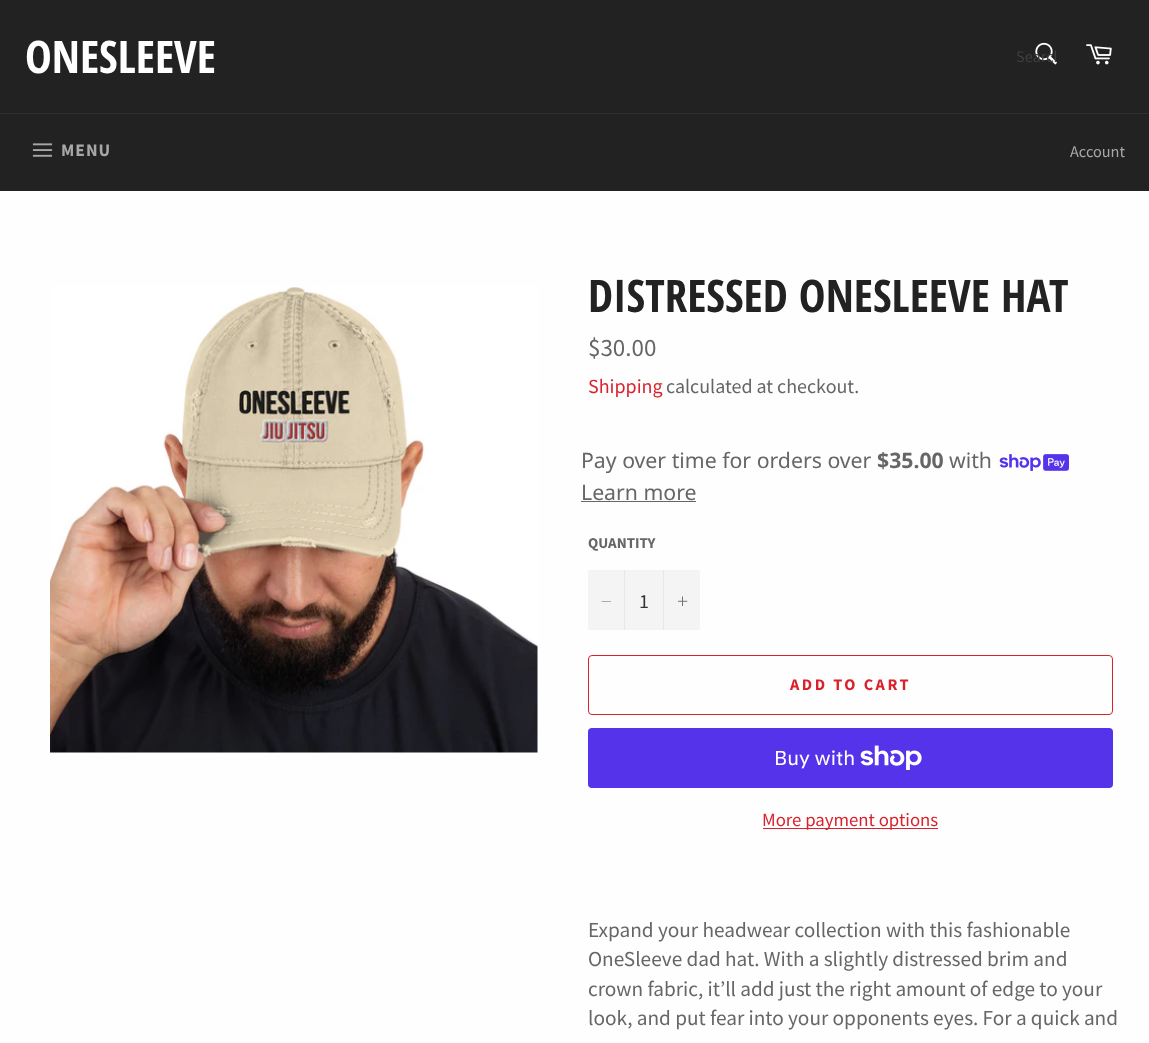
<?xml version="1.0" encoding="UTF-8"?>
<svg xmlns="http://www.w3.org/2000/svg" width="1149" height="1043">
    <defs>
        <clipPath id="clip1"><rect x="1016" y="45" width="40" height="21"/></clipPath>
    </defs>
    <rect width="100%" height="100%" fill="#FFFEFE"/>
    <rect x="0" y="0" width="1149" height="113" fill="#222222"/>
    <text x="25" y="73" font-family="Open Sans Condensed" font-size="45" font-weight="700" fill="#FFFFFF">ONESLEEVE</text>
    <image x="1035" y="42" width="22" height="23" href="img_01.png"/>
    <g clip-path="url(#clip1)">
        <text x="1016" y="62" font-family="Source Sans Pro" font-size="16.25" fill="#3F3F3F">Search</text>
    </g>
    <image x="1086" y="44" width="26" height="21" href="img_02.png"/>
    <rect x="0" y="114" width="1149" height="77" fill="#222222"/>
    <rect x="0" y="113" width="1149" height="1" fill="#2F2F2F"/>
    <image x="32" y="143" width="21" height="14" href="img_03.png"/>
    <text x="61" y="156" font-family="Source Sans Pro" font-size="17.5" font-weight="700" letter-spacing="1" fill="#A7A7A7">MENU</text>
    <text x="1070" y="157" font-family="Source Sans Pro" font-size="16.25" fill="#A7A7A7">Account</text>
    <image x="50" y="286" width="488" height="467" href="img_04.png"/>
    <text x="588" y="312" font-family="Open Sans Condensed" font-size="45" font-weight="700" fill="#222222">DISTRESSED ONESLEEVE HAT</text>
    <text x="588" y="356" font-family="Source Sans Pro" font-size="25" fill="#666666">$30.00</text>
    <text x="588" y="393" font-family="Source Sans Pro" font-size="20" fill="#D8232F">Shipping</text>
    <text x="666" y="393" font-family="Source Sans Pro" font-size="20" fill="#666666">calculated at checkout.</text>
    <text x="581" y="468" font-family="Noto Sans" font-size="21.25" fill="#666666">Pay over time for orders over</text>
    <text x="877" y="468" font-family="Noto Sans" font-size="21.25" font-weight="700" fill="#666666">$35.00</text>
    <text x="949" y="468" font-family="Noto Sans" font-size="21.25" fill="#666666">with</text>
    <image x="999" y="454" width="70" height="17" href="img_05.png"/>
    <text x="581" y="500" font-family="Noto Sans" font-size="21.25" fill="#666666">Learn more</text>
    <rect x="581" y="501" width="115" height="1" fill="#666666"/>
    <text x="588" y="548" font-family="Source Sans Pro" font-size="15" font-weight="700" fill="#666666">QUANTITY</text>
    <rect x="588" y="570" width="112" height="60" fill="#F4F4F4"/>
    <rect x="624" y="570" width="1" height="60" fill="#E7E7E7"/>
    <path d="M 611 601 V 601.5 H 601.5 V 601 Z" fill="#666666" fill-rule="evenodd"/>
    <text x="639" y="608" font-family="Source Sans Pro" font-size="20" fill="#333333">1</text>
    <rect x="663" y="570" width="1" height="60" fill="#E7E7E7"/>
    <image x="678" y="596" width="10" height="10" href="img_06.png"/>
    <rect x="588.5" y="655.5" width="524" height="59" rx="3.5" fill="none" stroke="#D8232F"/>
    <text x="790" y="690" font-family="Source Sans Pro" font-size="16.25" font-weight="700" letter-spacing="2.5" fill="#D8232F">ADD TO CART</text>
    <rect x="588" y="728" width="525" height="60" rx="4" fill="#5433EB"/>
    <text x="774" y="765" font-family="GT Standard" font-size="20" fill="#FFFFFF">Buy with</text>
    <image x="860" y="745" width="62" height="25" href="img_07.png"/>
    <rect x="763" y="828" width="175" height="1" fill="#D8232F"/>
    <text x="762" y="826" font-family="Source Sans Pro" font-size="18.75" fill="#D8232F">More payment options</text>
    <text font-family="Source Sans Pro" font-size="21.25" fill="#666666">
        <tspan x="588" y="937">Expand your headwear collection with this fashionable</tspan>
        <tspan x="588" y="966">OneSleeve dad hat. With a slightly distressed brim and</tspan>
        <tspan x="588" y="996">crown fabric, it’ll add just the right amount of edge to your</tspan>
        <tspan x="588" y="1025">look, and put fear into your opponents eyes. For a quick and</tspan>
    </text>
</svg>
